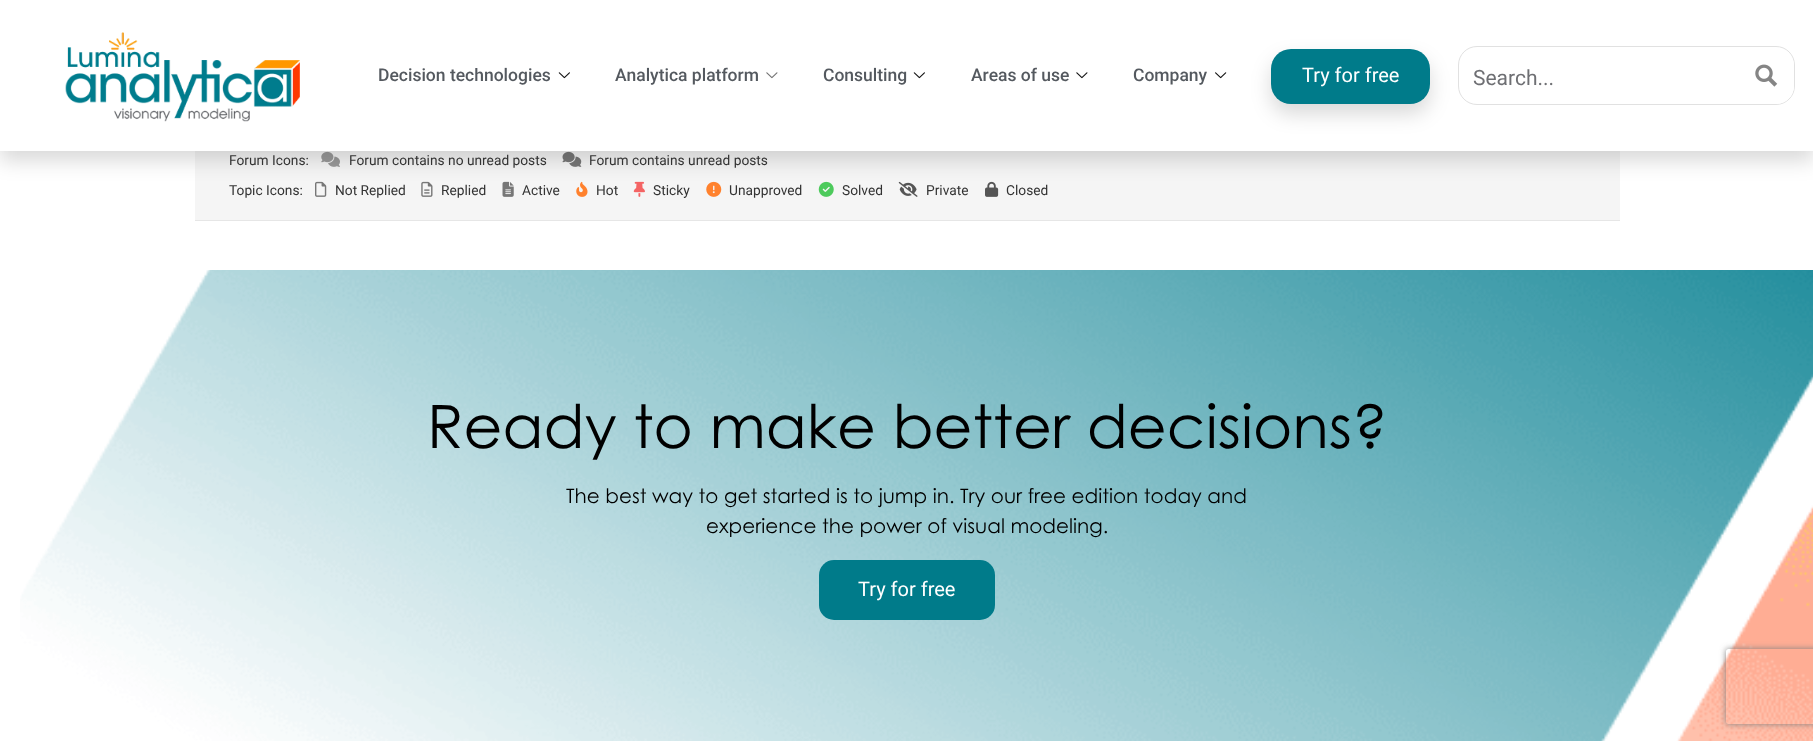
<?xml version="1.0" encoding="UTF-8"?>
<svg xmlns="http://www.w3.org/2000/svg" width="1813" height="741">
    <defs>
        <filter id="blur1" x="-50%" y="-200%" width="200%" height="500%"><feGaussianBlur stdDeviation="10"/></filter>
        <clipPath id="clip1"><path d="M 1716 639 H 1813 V 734 H 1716 Z M 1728.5 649 H 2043.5 C 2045 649 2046 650 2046 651.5 V 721.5 C 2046 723 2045 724 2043.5 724 H 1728.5 C 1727 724 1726 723 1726 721.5 V 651.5 C 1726 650 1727 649 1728.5 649 Z" clip-rule="evenodd"/></clipPath>
        <filter id="blur2" x="-50%" y="-200%" width="200%" height="500%"><feGaussianBlur stdDeviation="3"/></filter>
    </defs>
    <rect width="100%" height="100%" fill="#FFFFFF"/>
    <rect x="195" y="151" width="1425" height="69" fill="#F5F5F5"/>
    <image x="321" y="151" width="19" height="16" href="img_07.png"/>
    <image x="562" y="151" width="20" height="16" href="img_08.png"/>
    <image x="315" y="181" width="12" height="16" href="img_09.png"/>
    <image x="421" y="181" width="12" height="16" href="img_10.png"/>
    <image x="502" y="181" width="12" height="16" href="img_11.png"/>
    <image x="576" y="181" width="12" height="16" href="img_12.png"/>
    <image x="633" y="181" width="12" height="16" href="img_13.png"/>
    <image x="706" y="181" width="16" height="16" href="img_14.png"/>
    <image x="818" y="181" width="16" height="16" href="img_15.png"/>
    <image x="898" y="181" width="20" height="16" href="img_16.png"/>
    <image x="985" y="181" width="14" height="16" href="img_17.png"/>
    <rect x="0" y="10" width="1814" height="151" fill="#000000" fill-opacity="0.15" filter="url(#blur1)"/>
    <rect x="0" y="0" width="1813" height="151" fill="#FFFFFF"/>
    <image x="65" y="32" width="235" height="90" href="img_01.png"/>
    <text x="378" y="81" font-family="Roboto" font-size="17.5" font-weight="500" fill="#54595F">Decision technologies</text>
    <image x="558" y="72" width="12" height="7" href="img_02.png"/>
    <text x="615" y="81" font-family="Roboto" font-size="17.5" font-weight="500" fill="#54595F">Analytica platform</text>
    <image x="766" y="72" width="12" height="7" href="img_03.png"/>
    <text x="823" y="81" font-family="Roboto" font-size="17.5" font-weight="500" fill="#54595F">Consulting</text>
    <image x="913" y="72" width="12" height="7" href="img_02.png"/>
    <text x="971" y="81" font-family="Roboto" font-size="17.5" font-weight="500" fill="#54595F">Areas of use</text>
    <image x="1076" y="72" width="12" height="7" href="img_04.png"/>
    <text x="1133" y="81" font-family="Roboto" font-size="17.5" font-weight="500" fill="#54595F">Company</text>
    <image x="1215" y="72" width="12" height="7" href="img_05.png"/>
    <rect x="1458.5" y="46.5" width="336" height="58" rx="18.5" fill="none" stroke="#E1E1E1"/>
    <rect x="1271" y="59" width="159" height="55" rx="20" fill="#000000" fill-opacity="0.15" filter="url(#blur1)"/>
    <rect x="1271" y="49" width="159" height="55" rx="20" fill="#007B8A"/>
    <text x="1302" y="82" font-family="Roboto" font-size="20" fill="#FFFFFF">Try for free</text>
    <text x="1473" y="85" font-family="Roboto" font-size="21" fill="#6E6F73">Search...</text>
    <path d="M 1738 48 H 1776 C 1786 48 1794 56 1794 66 V 86 C 1794 96 1786 104 1776 104 H 1738 Z" fill="#FFFFFF"/>
    <image x="1755" y="64" width="23" height="23" href="img_06.png"/>
    <text x="229" y="165" font-family="Roboto" font-size="13.75" fill="#333333">Forum Icons:</text>
    <text x="349" y="165" font-family="Roboto" font-size="13.75" fill="#333333">Forum contains no unread posts</text>
    <text x="589" y="165" font-family="Roboto" font-size="13.75" fill="#333333">Forum contains unread posts</text>
    <text x="229" y="195" font-family="Roboto" font-size="13.75" fill="#333333">Topic Icons:</text>
    <text x="335" y="195" font-family="Roboto" font-size="13.75" fill="#333333">Not Replied</text>
    <text x="441" y="195" font-family="Roboto" font-size="13.75" fill="#333333">Replied</text>
    <text x="522" y="195" font-family="Roboto" font-size="13.75" fill="#333333">Active</text>
    <text x="596" y="195" font-family="Roboto" font-size="13.75" fill="#333333">Hot</text>
    <text x="653" y="195" font-family="Roboto" font-size="13.75" fill="#333333">Sticky</text>
    <text x="729" y="195" font-family="Roboto" font-size="13.75" fill="#333333">Unapproved</text>
    <text x="842" y="195" font-family="Roboto" font-size="13.75" fill="#333333">Solved</text>
    <text x="926" y="195" font-family="Roboto" font-size="13.75" fill="#333333">Private</text>
    <text x="1006" y="195" font-family="Roboto" font-size="13.75" fill="#333333">Closed</text>
    <rect x="195" y="220" width="1425" height="1" fill="#E6E6E6"/>
    <image x="20" y="270" width="1793" height="471" href="img_18.png"/>
    <text x="427" y="448" font-family="Century Gothic" font-size="60" fill="#000000">Ready to make better decisions?</text>
    <text x="566" y="503" font-family="Century Gothic" font-size="20" fill="#000000">The best way to get started is to jump in. Try our free edition today and</text>
    <text x="706" y="533" font-family="Century Gothic" font-size="20" fill="#000000">experience the power of visual modeling.</text>
    <rect x="819" y="560" width="176" height="60" rx="15" fill="#007B8A"/>
    <text x="858" y="596" font-family="Roboto" font-size="20" fill="#FFFFFF">Try for free</text>
    <g clip-path="url(#clip1)">
        <rect x="1726" y="649" width="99" height="75" rx="2.5" fill="#808080" filter="url(#blur2)"/>
    </g>
</svg>
